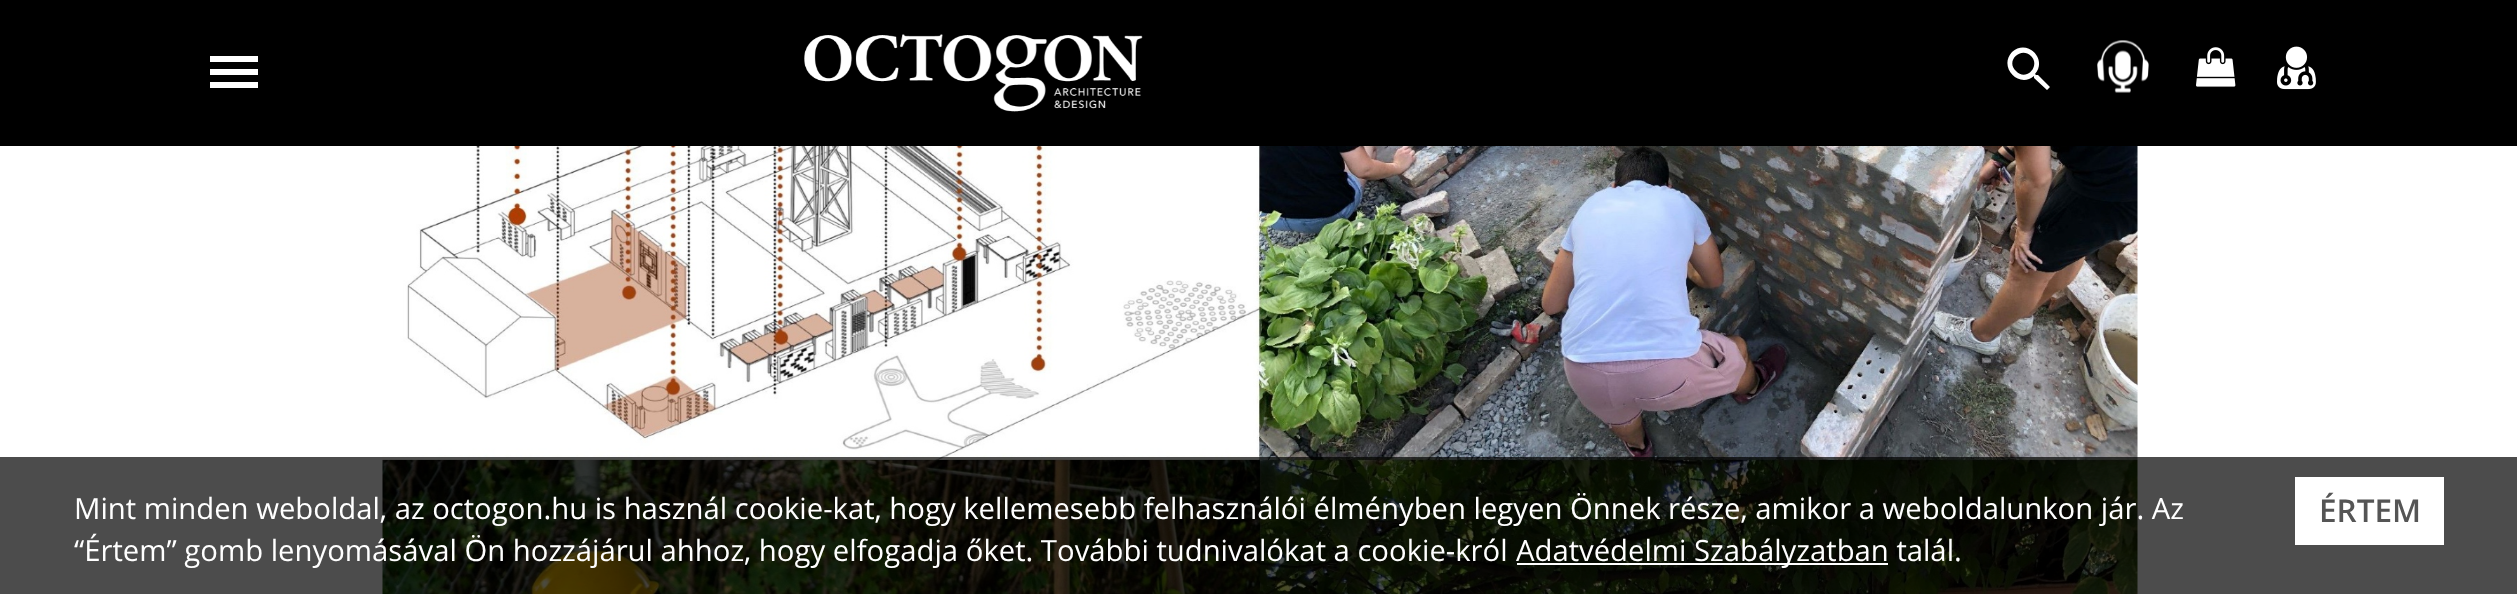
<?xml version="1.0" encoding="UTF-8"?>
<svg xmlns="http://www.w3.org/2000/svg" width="2517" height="594">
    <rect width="100%" height="100%" fill="#FFFFFF"/>
    <rect x="0" y="0" width="2517" height="146" fill="#000000"/>
    <path d="M 210 56 H 258 V 62 H 210 Z M 210 75 V 69 H 258 V 75 Z M 210 88 V 82 H 258 V 88 Z" fill="#FFFFFF"/>
    <image x="804" y="34" width="339" height="78" href="img_01.png"/>
    <path d="M 2016 71 C 2026 82 2041 66 2031 56 C 2021 46 2005 61 2016 71 Z M 2038 75 L 2050 87 L 2047 90 L 2034 78 V 76 C 2019 89 1998 67 2012 52 C 2027 38 2048 59 2035 74 L 2036 75 Z" fill="#FFFFFF"/>
    <image x="2097" y="40" width="52" height="53" href="img_02.png"/>
    <image x="2196" y="47" width="40" height="40" href="img_03.png"/>
    <image x="2277" y="46" width="39" height="44" href="img_04.png"/>
    <image x="382" y="146" width="1756" height="448" href="img_05.png"/>
    <rect x="0" y="457" width="2517" height="137" fill="#000000" fill-opacity="0.7"/>
    <text font-family="Open Sans" font-size="29.25" fill="#FFFFFF">
        <tspan x="74" y="519">Mint minden weboldal, az octogon.hu is használ cookie-kat, hogy kellemesebb felhasználói élményben legyen Önnek része, amikor a weboldalunkon jár. Az</tspan>
        <tspan x="74" y="561">“Értem” gomb lenyomásával Ön hozzájárul ahhoz, hogy elfogadja őket. További tudnivalókat a cookie-król</tspan>
    </text>
    <rect x="1517" y="563" width="371" height="2" fill="#FFFFFF"/>
    <text x="1516" y="561" font-family="Open Sans" font-size="29.25" fill="#FFFFFF">Adatvédelmi Szabályzatban talál.</text>
    <rect x="2295" y="477" width="149" height="68" fill="#FFFFFF"/>
    <text x="2319" y="522" font-family="Open Sans" font-size="31.5" font-weight="600" fill="#555555">ÉRTEM</text>
</svg>
